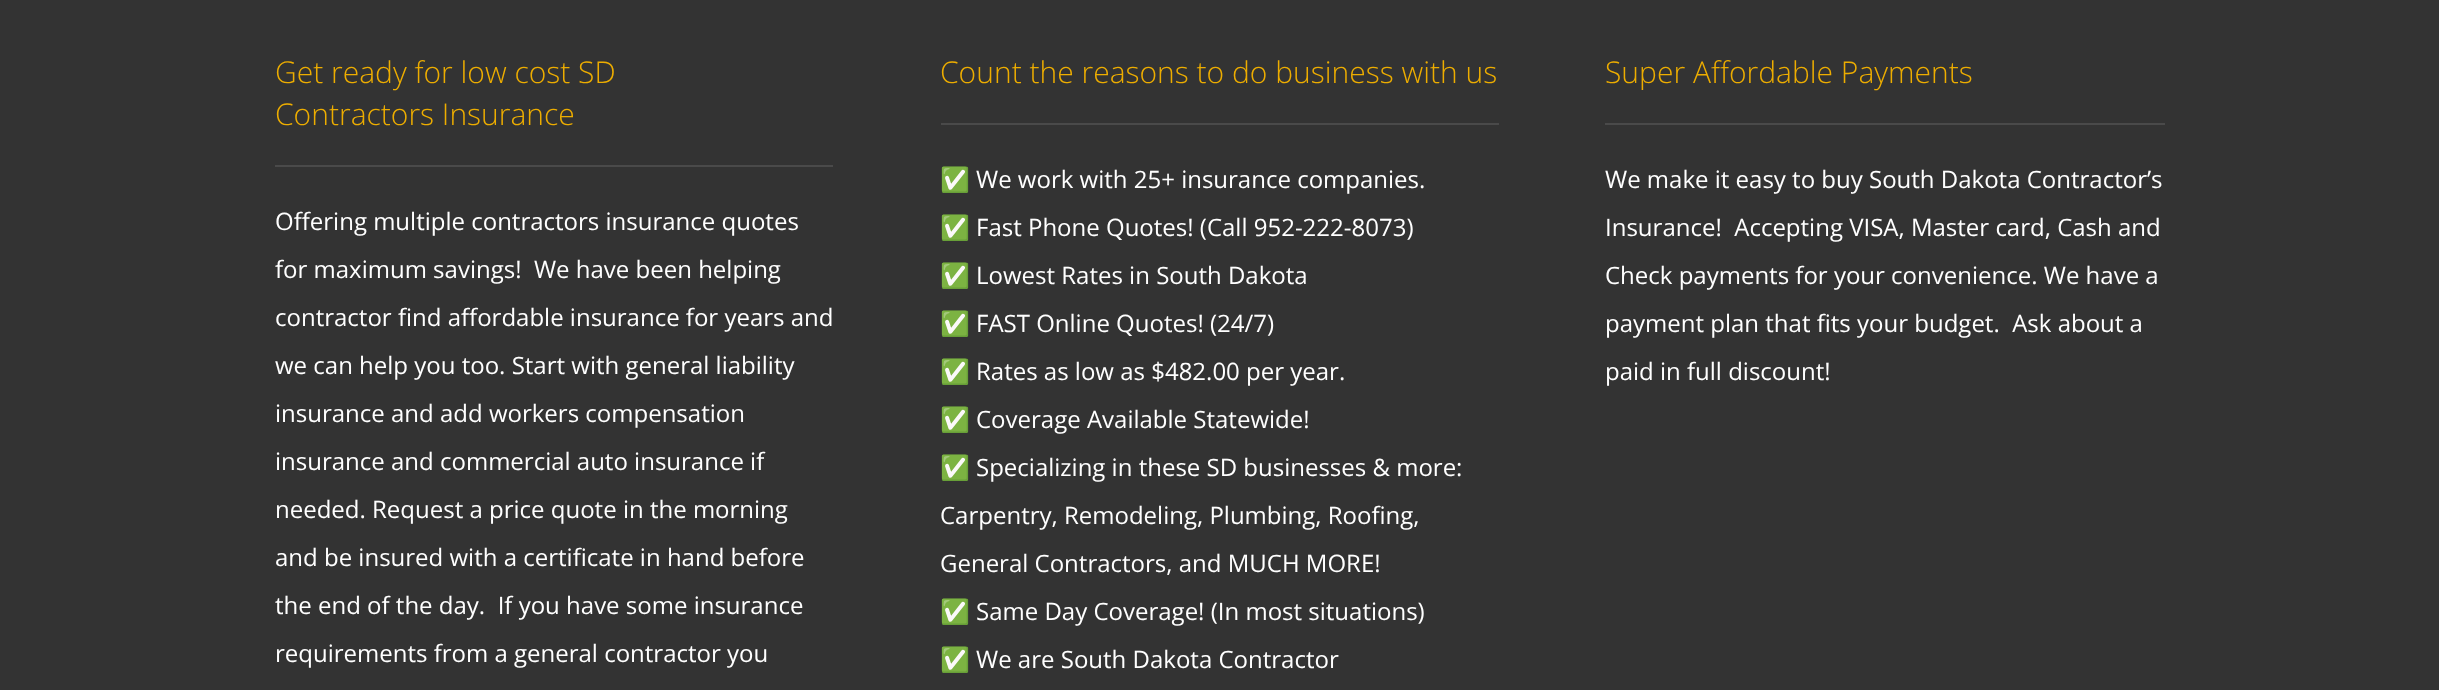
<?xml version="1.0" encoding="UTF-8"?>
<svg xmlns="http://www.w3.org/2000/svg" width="2439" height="690">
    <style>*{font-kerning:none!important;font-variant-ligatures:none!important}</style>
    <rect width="100%" height="100%" fill="#333333"/>
    <rect x="275" y="165" width="558" height="2" fill="#4A4A4A"/>
    <text font-family="Open Sans" font-size="30" font-weight="300" fill="#EDAD00">
        <tspan x="275" y="83">Get ready for low cost SD</tspan>
        <tspan x="275" y="125">Contractors Insurance</tspan>
    </text>
    <text x="275" y="230" font-family="Open Sans" font-size="24" fill="#FFFFFF">Offering multiple contractors insurance quotes</text>
    <text x="275" y="278" font-family="Open Sans" font-size="24" fill="#FFFFFF" xml:space="preserve">for maximum savings!  We have been helping</text>
    <text x="275" y="326" font-family="Open Sans" font-size="24" fill="#FFFFFF">contractor find affordable insurance for years and</text>
    <text x="275" y="374" font-family="Open Sans" font-size="24" fill="#FFFFFF">we can help you too. Start with general liability</text>
    <text x="275" y="422" font-family="Open Sans" font-size="24" fill="#FFFFFF">insurance and add workers compensation</text>
    <text x="275" y="470" font-family="Open Sans" font-size="24" fill="#FFFFFF">insurance and commercial auto insurance if</text>
    <text x="275" y="518" font-family="Open Sans" font-size="24" fill="#FFFFFF">needed. Request a price quote in the morning</text>
    <text x="275" y="566" font-family="Open Sans" font-size="24" fill="#FFFFFF">and be insured with a certificate in hand before</text>
    <text x="275" y="614" font-family="Open Sans" font-size="24" fill="#FFFFFF" xml:space="preserve">the end of the day.  If you have some insurance</text>
    <text x="275" y="662" font-family="Open Sans" font-size="24" fill="#FFFFFF">requirements from a general contractor you</text>
    <rect x="941" y="123" width="558" height="2" fill="#4A4A4A"/>
    <text x="940" y="83" font-family="Open Sans" font-size="30" font-weight="300" fill="#EDAD00">Count the reasons to do business with us</text>
    <text x="940" y="188" font-family="Noto Color Emoji" font-size="24" fill="#FFFFFF">✅</text>
    <text x="976" y="188" font-family="Open Sans" font-size="24" fill="#FFFFFF">We work with 25+ insurance companies.</text>
    <text x="940" y="236" font-family="Noto Color Emoji" font-size="24" fill="#FFFFFF">✅</text>
    <text x="976" y="236" font-family="Open Sans" font-size="24" fill="#FFFFFF">Fast Phone Quotes! (Call 952-222-8073)</text>
    <text x="940" y="284" font-family="Noto Color Emoji" font-size="24" fill="#FFFFFF">✅</text>
    <text x="976" y="284" font-family="Open Sans" font-size="24" fill="#FFFFFF">Lowest Rates in South Dakota</text>
    <text x="940" y="332" font-family="Noto Color Emoji" font-size="24" fill="#FFFFFF">✅</text>
    <text x="976" y="332" font-family="Open Sans" font-size="24" fill="#FFFFFF">FAST Online Quotes! (24/7)</text>
    <text x="940" y="380" font-family="Noto Color Emoji" font-size="24" fill="#FFFFFF">✅</text>
    <text x="976" y="380" font-family="Open Sans" font-size="24" fill="#FFFFFF">Rates as low as $482.00 per year.</text>
    <text x="940" y="428" font-family="Noto Color Emoji" font-size="24" fill="#FFFFFF">✅</text>
    <text x="976" y="428" font-family="Open Sans" font-size="24" fill="#FFFFFF">Coverage Available Statewide!</text>
    <text x="940" y="476" font-family="Noto Color Emoji" font-size="24" fill="#FFFFFF">✅</text>
    <text x="976" y="476" font-family="Open Sans" font-size="24" fill="#FFFFFF">Specializing in these SD businesses &amp; more:</text>
    <text x="940" y="524" font-family="Open Sans" font-size="24" fill="#FFFFFF">Carpentry, Remodeling, Plumbing, Roofing,</text>
    <text x="940" y="572" font-family="Open Sans" font-size="24" fill="#FFFFFF">General Contractors, and MUCH MORE!</text>
    <text x="940" y="620" font-family="Noto Color Emoji" font-size="24" fill="#FFFFFF">✅</text>
    <text x="976" y="620" font-family="Open Sans" font-size="24" fill="#FFFFFF">Same Day Coverage! (In most situations)</text>
    <text x="940" y="668" font-family="Noto Color Emoji" font-size="24" fill="#FFFFFF">✅</text>
    <text x="976" y="668" font-family="Open Sans" font-size="24" fill="#FFFFFF">We are South Dakota Contractor</text>
    <rect x="1605" y="123" width="560" height="2" fill="#4A4A4A"/>
    <text x="1605" y="83" font-family="Open Sans" font-size="30" font-weight="300" fill="#EDAD00">Super Affordable Payments</text>
    <text x="1605" y="188" font-family="Open Sans" font-size="24" fill="#FFFFFF">We make it easy to buy South Dakota Contractor’s</text>
    <text x="1605" y="236" font-family="Open Sans" font-size="24" fill="#FFFFFF" xml:space="preserve">Insurance!  Accepting VISA, Master card, Cash and</text>
    <text x="1605" y="284" font-family="Open Sans" font-size="24" fill="#FFFFFF">Check payments for your convenience. We have a</text>
    <text x="1605" y="332" font-family="Open Sans" font-size="24" fill="#FFFFFF" xml:space="preserve">payment plan that fits your budget.  Ask about a</text>
    <text x="1605" y="380" font-family="Open Sans" font-size="24" fill="#FFFFFF">paid in full discount!</text>
</svg>
